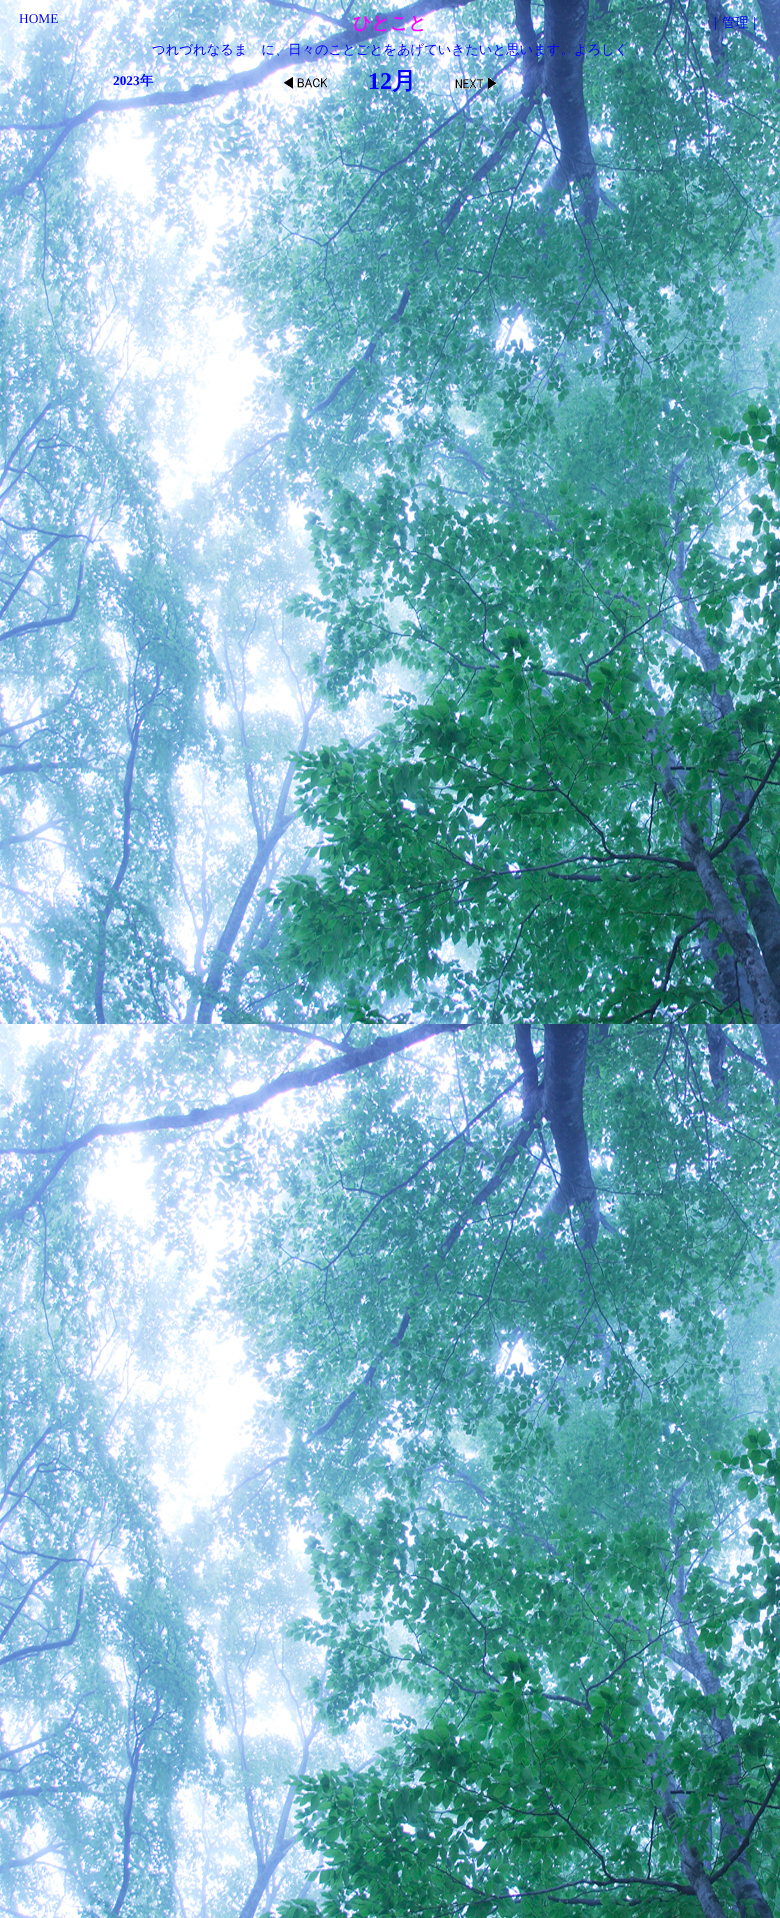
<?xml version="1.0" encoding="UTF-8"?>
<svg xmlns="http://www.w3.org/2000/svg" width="780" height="1918">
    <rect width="100%" height="100%" fill="#FFFFFF"/>
    <image x="0" y="0" width="780" height="1918" href="img_01.png"/>
    <text x="19" y="23" font-family="Liberation Serif" font-size="13.35" fill="#0000EE">HOME</text>
    <text x="353" y="29" font-family="WenQuanYi Zen Hei" font-size="18" font-weight="700" fill="#FF00FF">ひとこと</text>
    <text x="709" y="27" font-family="WenQuanYi Zen Hei" font-size="13.35" font-weight="500" fill="#0000FF">｜</text>
    <text x="722" y="27" font-family="WenQuanYi Zen Hei" font-size="13.35" font-weight="500" fill="#0000EE">管理</text>
    <text x="748" y="27" font-family="WenQuanYi Zen Hei" font-size="13.35" font-weight="500" fill="#0000FF">｜</text>
    <text x="152" y="54" font-family="WenQuanYi Zen Hei" font-size="13.35" font-weight="500" fill="#0000FF">つれづれなるまゝに、日々のことごとをあげていきたいと思います。よろしく</text>
    <text x="113" y="85" font-family="Liberation Serif" font-size="13.35" font-weight="700" fill="#0000FF">2023</text>
    <text x="140" y="85" font-family="WenQuanYi Zen Hei" font-size="13.35" font-weight="700" fill="#0000FF">年</text>
    <image x="283" y="77" width="45" height="12" href="img_02.png"/>
    <text x="368" y="89" font-family="Liberation Serif" font-size="24" font-weight="700" fill="#0000FF">12</text>
    <text x="392" y="89" font-family="WenQuanYi Zen Hei" font-size="24" font-weight="700" fill="#0000FF">月</text>
    <image x="455" y="77" width="42" height="12" href="img_03.png"/>
</svg>
